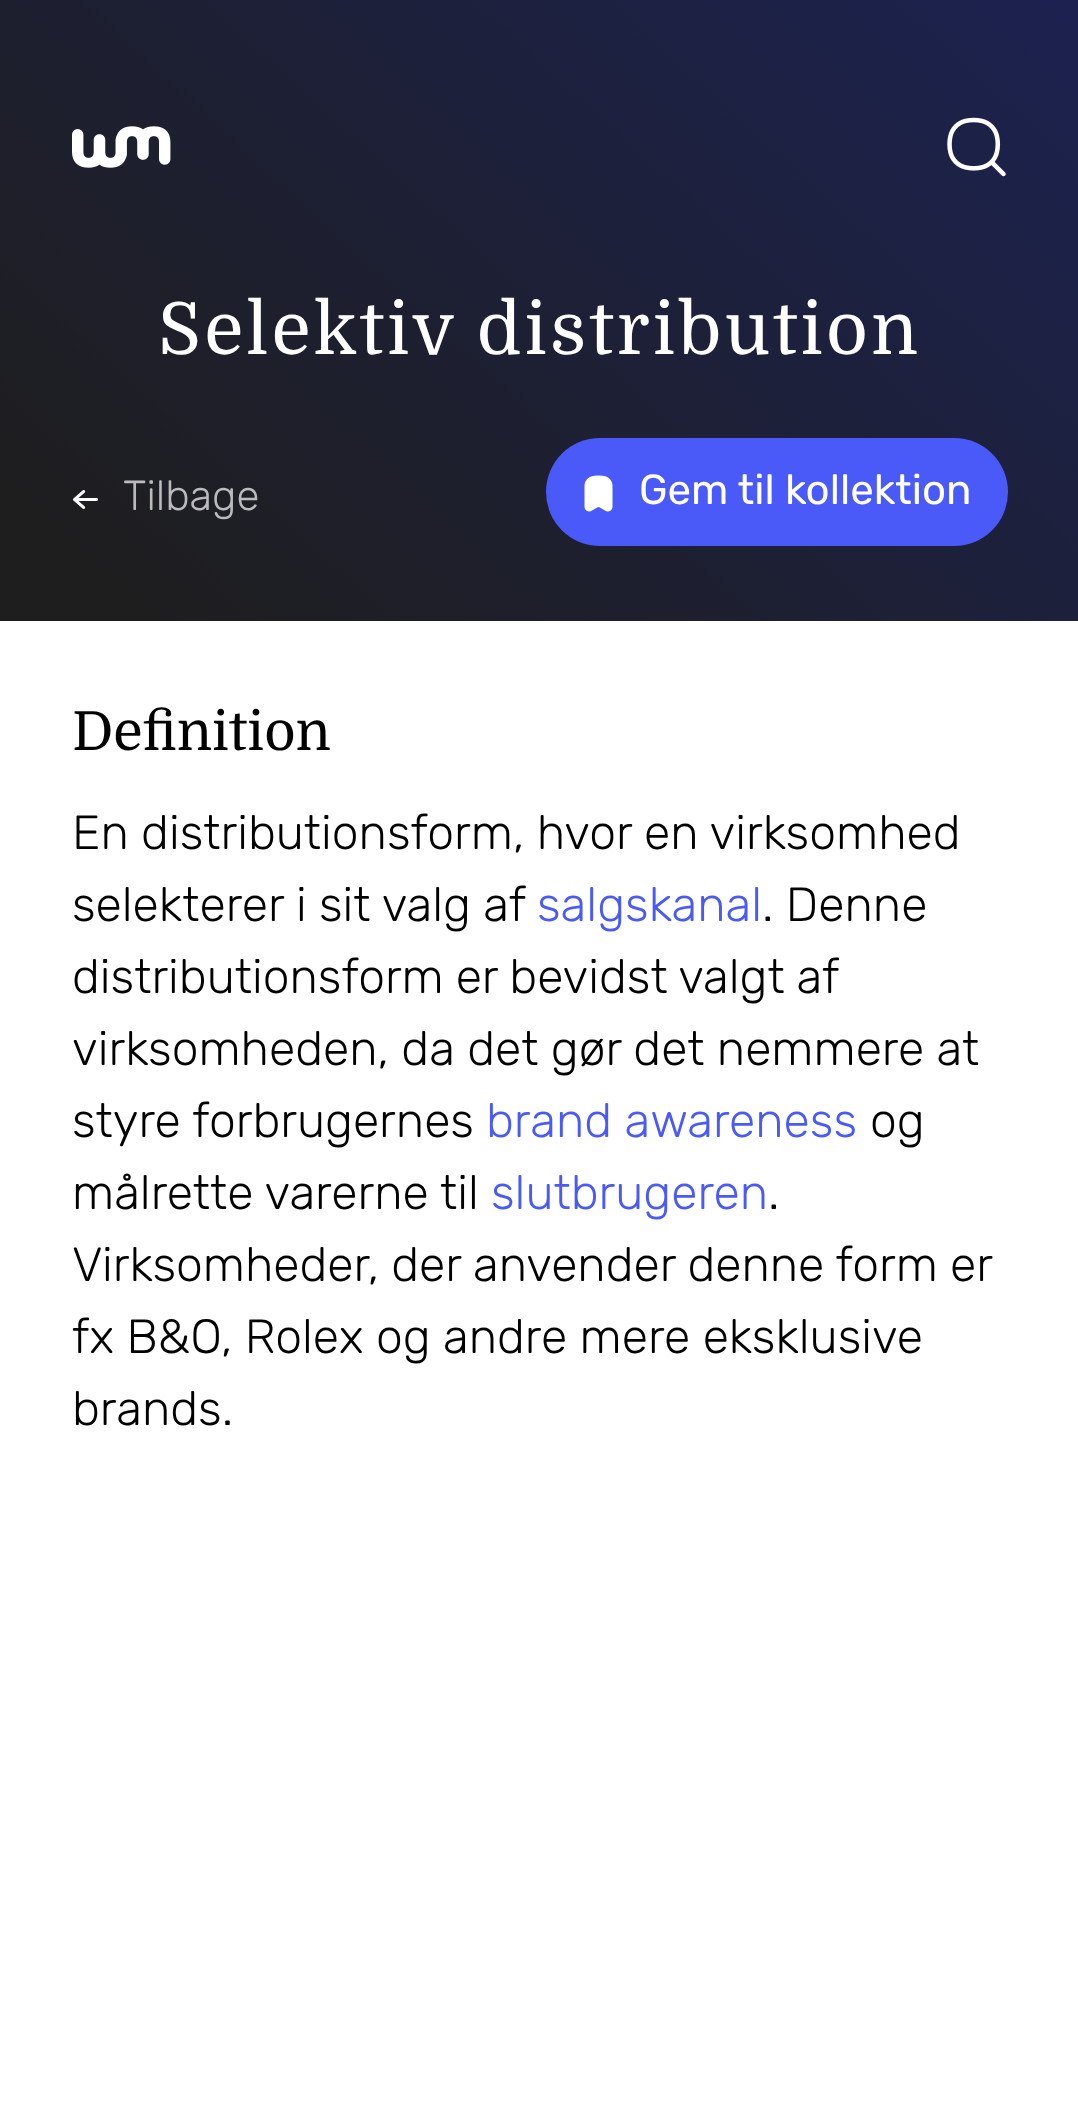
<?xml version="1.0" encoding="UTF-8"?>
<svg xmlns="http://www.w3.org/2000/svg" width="1078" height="2119">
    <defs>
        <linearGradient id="g1" gradientUnits="userSpaceOnUse" x1="1001" y1="-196" x2="141" y2="749"><stop offset="0" stop-color="#1C2254"/><stop offset="0.94" stop-color="#1E1E1E"/></linearGradient>
    </defs>
    <rect width="100%" height="100%" fill="#FFFFFF"/>
    <rect x="0" y="0" width="1078" height="621" fill="url(#g1)"/>
    <image x="72" y="126" width="99" height="42" href="img_01.png"/>
    <image x="947" y="117" width="59" height="60" href="img_02.png"/>
    <text x="158" y="354" font-family="Domine" font-size="72" letter-spacing="3" fill="#FFFFFF">Selektiv distribution</text>
    <image x="73" y="490" width="25" height="19" href="img_03.png"/>
    <text x="123" y="510" font-family="Rubik" font-size="42" font-weight="300" fill="#BBBBBD">Tilbage</text>
    <rect x="546" y="438" width="462" height="108" rx="54" fill="#495AF8"/>
    <image x="584" y="475" width="29" height="37" href="img_04.png"/>
    <text x="639" y="504" font-family="'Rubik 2'" font-size="42" font-weight="300" fill="#FFFFFF">Gem til kollektion</text>
    <text x="72" y="750" font-family="Domine" font-size="54" fill="#000000">Definition</text>
    <text font-family="Rubik" font-size="48" font-weight="300" fill="#000000">
        <tspan x="72" y="849">En distributionsform, hvor en virksomhed</tspan>
        <tspan x="72" y="921">selekterer i sit valg af</tspan>
    </text>
    <text x="537" y="921" font-family="Rubik" font-size="48" font-weight="300" fill="#495AF8">salgskanal</text>
    <text x="762" y="921" font-family="Rubik" font-size="48" font-weight="300" fill="#000000">. Denne</text>
    <text font-family="Rubik" font-size="48" font-weight="300" fill="#000000">
        <tspan x="72" y="993" word-spacing="-0.5">distributionsform er bevidst valgt af</tspan>
        <tspan x="72" y="1065">virksomheden, da det gør det nemmere at</tspan>
        <tspan x="72" y="1137">styre forbrugernes</tspan>
    </text>
    <text x="486" y="1137" font-family="Rubik" font-size="48" font-weight="300" fill="#495AF8">brand awareness</text>
    <text x="870" y="1137" font-family="Rubik" font-size="48" font-weight="300" fill="#000000">og</text>
    <text x="72" y="1209" font-family="Rubik" font-size="48" font-weight="300" fill="#000000">målrette varerne til</text>
    <text x="491" y="1209" font-family="Rubik" font-size="48" font-weight="300" fill="#495AF8">slutbrugeren</text>
    <text x="768" y="1209" font-family="Rubik" font-size="48" font-weight="300" fill="#000000">.</text>
    <text font-family="Rubik" font-size="48" font-weight="300" fill="#000000">
        <tspan x="72" y="1281" word-spacing="-0.25">Virksomheder, der anvender denne form er</tspan>
        <tspan x="72" y="1353">fx B&amp;O, Rolex og andre mere eksklusive</tspan>
        <tspan x="72" y="1425">brands.</tspan>
    </text>
</svg>
